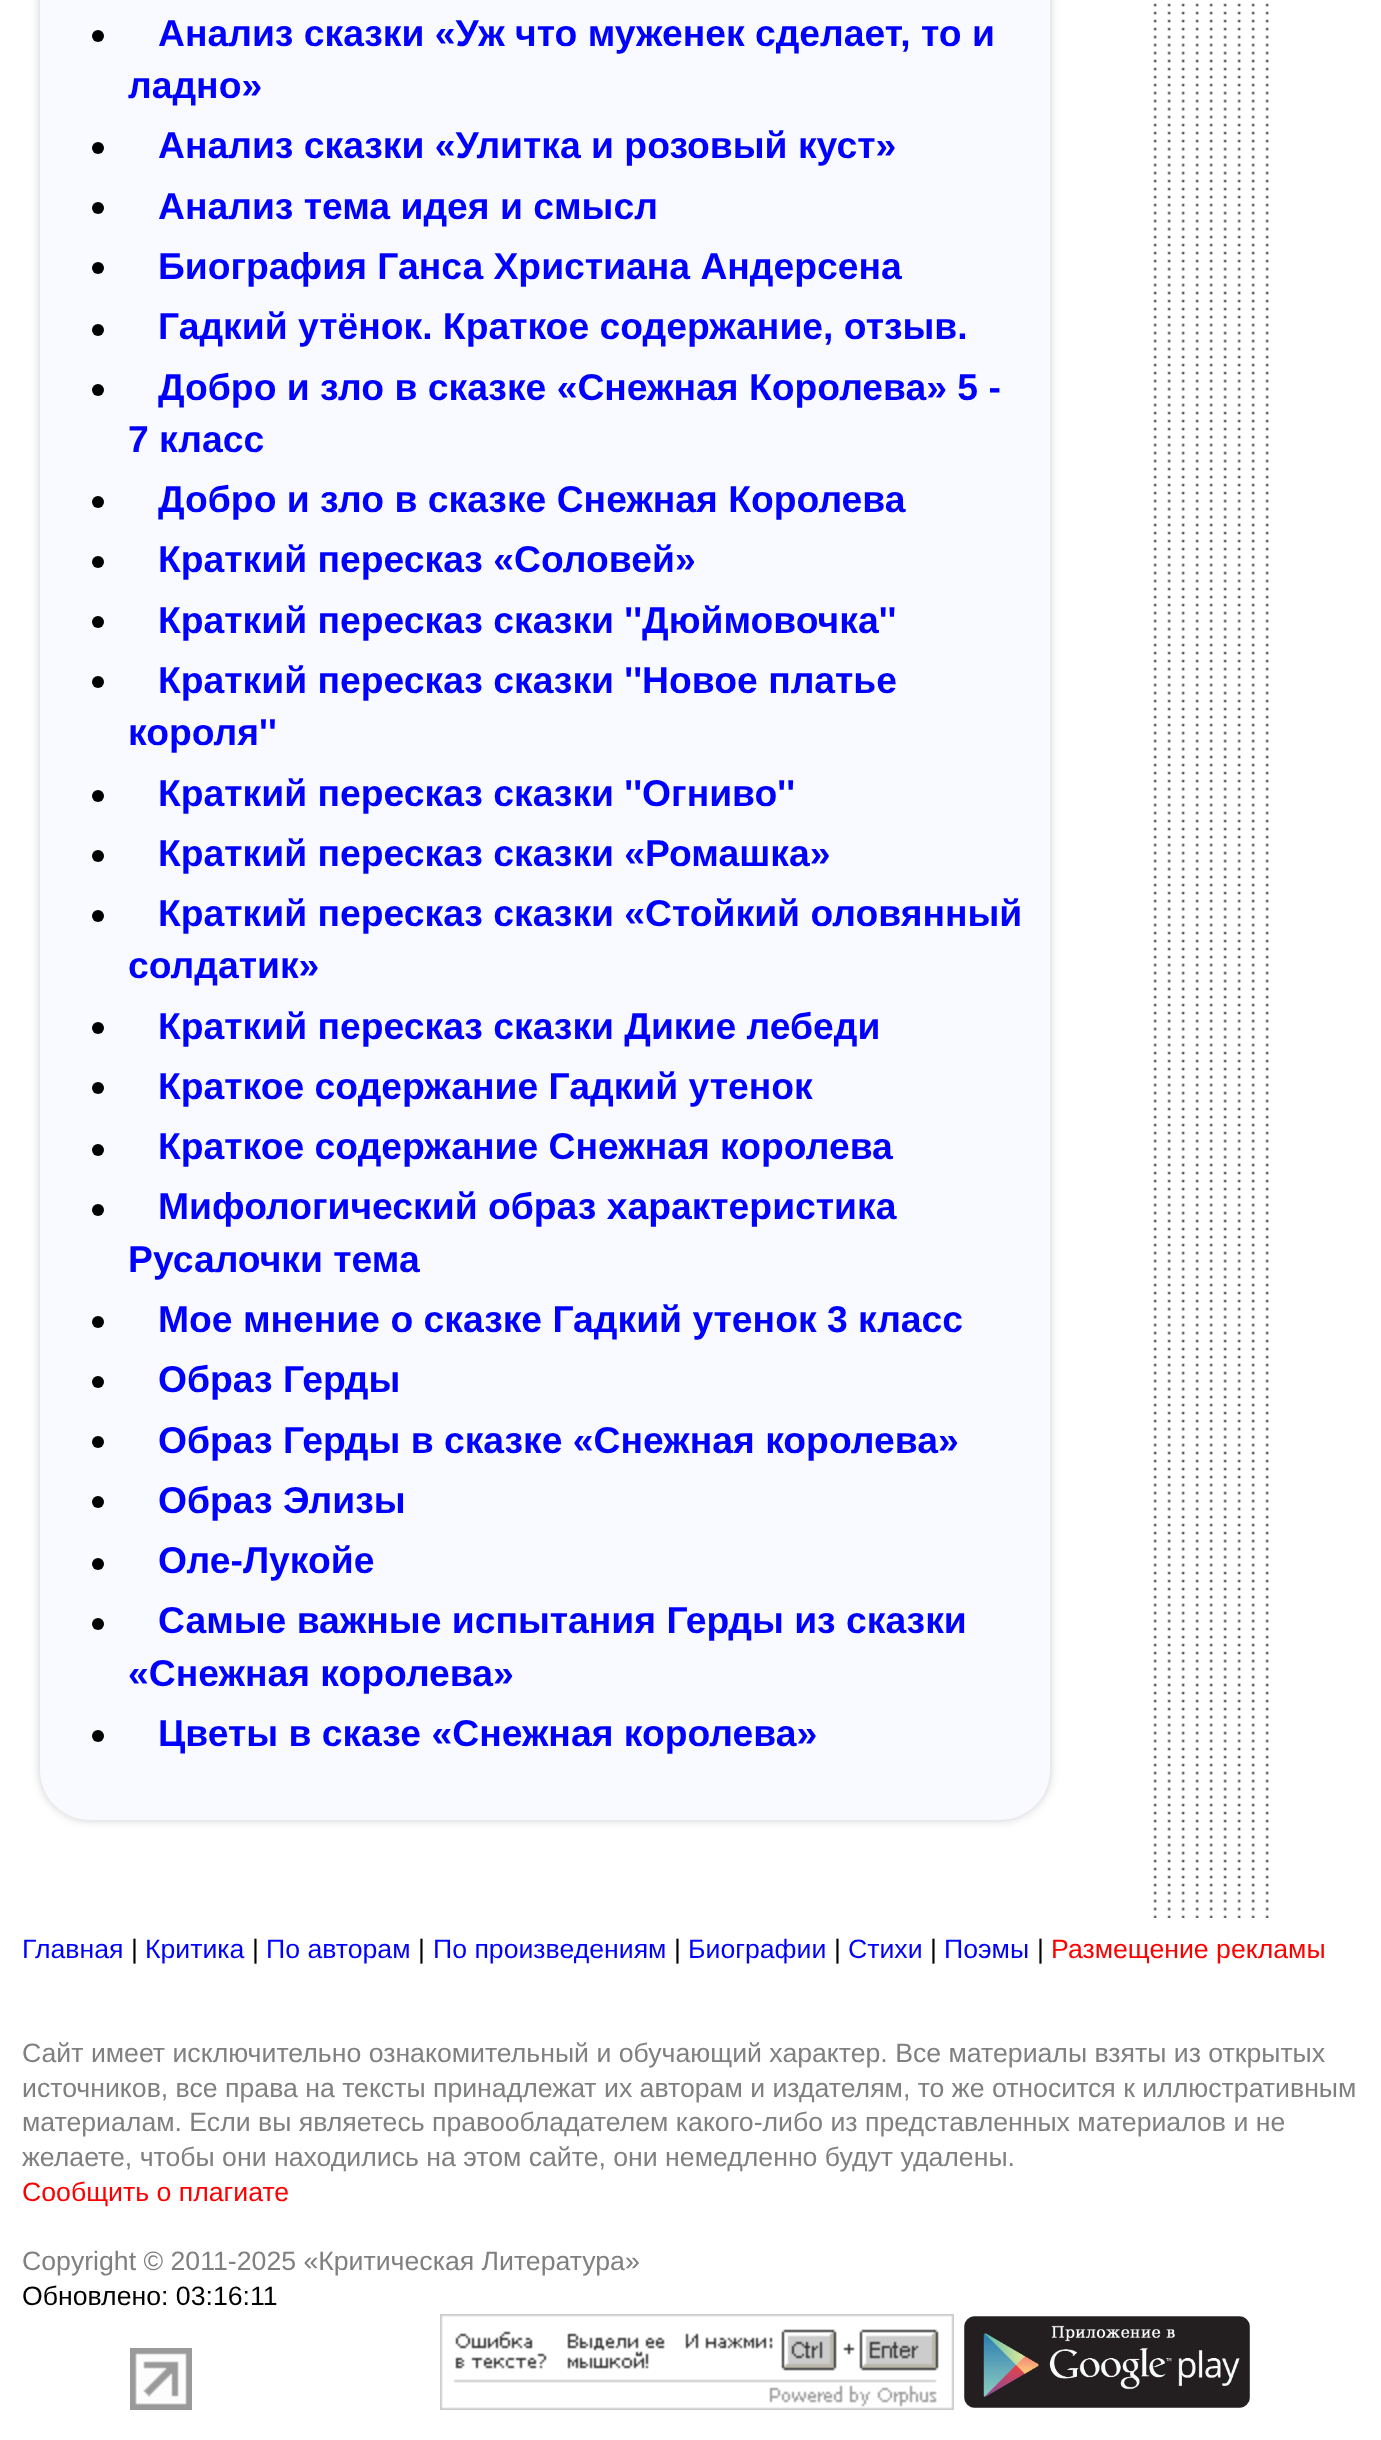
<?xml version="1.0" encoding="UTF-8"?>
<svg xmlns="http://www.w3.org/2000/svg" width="1381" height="2440">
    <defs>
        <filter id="blur1" x="-50%" y="-200%" width="200%" height="500%"><feGaussianBlur stdDeviation="5"/></filter>
    </defs>
    <rect width="100%" height="100%" fill="#FFFFFF"/>
    <rect x="40" y="-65" width="1010" height="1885" rx="50" fill="#000000" fill-opacity="0.2" filter="url(#blur1)"/>
    <rect x="40" y="-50" width="1010" height="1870" rx="50" fill="#F9FAFF"/>
    <circle cx="98" cy="36" r="6" fill="#000000"/>
    <text x="158" y="46" font-family="Liberation Sans" font-size="37.3" font-weight="700" fill="#0000FF">Анализ сказки «Уж что муженек сделает, то и</text>
    <text x="128" y="98" font-family="Liberation Sans" font-size="37.3" font-weight="700" fill="#0000FF">ладно»</text>
    <circle cx="98" cy="148" r="6" fill="#000000"/>
    <text x="158" y="158" font-family="Liberation Sans" font-size="37.3" font-weight="700" fill="#0000FF">Анализ сказки «Улитка и розовый куст»</text>
    <circle cx="98" cy="208" r="6" fill="#000000"/>
    <text x="158" y="219" font-family="Liberation Sans" font-size="37.3" font-weight="700" fill="#0000FF">Анализ тема идея и смысл</text>
    <circle cx="98" cy="268" r="6" fill="#000000"/>
    <text x="158" y="279" font-family="Liberation Sans" font-size="37.3" font-weight="700" fill="#0000FF">Биография Ганса Христиана Андерсена</text>
    <circle cx="98" cy="330" r="6" fill="#000000"/>
    <text x="158" y="339" font-family="Liberation Sans" font-size="37.3" font-weight="700" fill="#0000FF">Гадкий утёнок. Краткое содержание, отзыв.</text>
    <circle cx="98" cy="390" r="6" fill="#000000"/>
    <text x="158" y="400" font-family="Liberation Sans" font-size="37.3" font-weight="700" fill="#0000FF">Добро и зло в сказке «Снежная Королева» 5 -</text>
    <text x="128" y="452" font-family="Liberation Sans" font-size="37.3" font-weight="700" fill="#0000FF">7 класс</text>
    <circle cx="98" cy="502" r="6" fill="#000000"/>
    <text x="158" y="512" font-family="Liberation Sans" font-size="37.3" font-weight="700" fill="#0000FF">Добро и зло в сказке Снежная Королева</text>
    <circle cx="98" cy="562" r="6" fill="#000000"/>
    <text x="158" y="572" font-family="Liberation Sans" font-size="37.3" font-weight="700" fill="#0000FF">Краткий пересказ «Соловей»</text>
    <circle cx="98" cy="622" r="6" fill="#000000"/>
    <text x="158" y="633" font-family="Liberation Sans" font-size="37.3" font-weight="700" fill="#0000FF">Краткий пересказ сказки ''Дюймовочка''</text>
    <circle cx="98" cy="682" r="6" fill="#000000"/>
    <text x="158" y="693" font-family="Liberation Sans" font-size="37.3" font-weight="700" fill="#0000FF">Краткий пересказ сказки ''Новое платье</text>
    <text x="128" y="745" font-family="Liberation Sans" font-size="37.3" font-weight="700" fill="#0000FF">короля''</text>
    <circle cx="98" cy="796" r="6" fill="#000000"/>
    <text x="158" y="806" font-family="Liberation Sans" font-size="37.3" font-weight="700" fill="#0000FF">Краткий пересказ сказки ''Огниво''</text>
    <circle cx="98" cy="856" r="6" fill="#000000"/>
    <text x="158" y="866" font-family="Liberation Sans" font-size="37.3" font-weight="700" fill="#0000FF">Краткий пересказ сказки «Ромашка»</text>
    <circle cx="98" cy="916" r="6" fill="#000000"/>
    <text x="158" y="926" font-family="Liberation Sans" font-size="37.3" font-weight="700" fill="#0000FF">Краткий пересказ сказки «Стойкий оловянный</text>
    <text x="128" y="978" font-family="Liberation Sans" font-size="37.3" font-weight="700" fill="#0000FF">солдатик»</text>
    <circle cx="98" cy="1028" r="6" fill="#000000"/>
    <text x="158" y="1039" font-family="Liberation Sans" font-size="37.3" font-weight="700" fill="#0000FF">Краткий пересказ сказки Дикие лебеди</text>
    <circle cx="98" cy="1088" r="6" fill="#000000"/>
    <text x="158" y="1099" font-family="Liberation Sans" font-size="37.3" font-weight="700" fill="#0000FF">Краткое содержание Гадкий утенок</text>
    <circle cx="98" cy="1150" r="6" fill="#000000"/>
    <text x="158" y="1159" font-family="Liberation Sans" font-size="37.3" font-weight="700" fill="#0000FF">Краткое содержание Снежная королева</text>
    <circle cx="98" cy="1210" r="6" fill="#000000"/>
    <text x="158" y="1219" font-family="Liberation Sans" font-size="37.3" font-weight="700" fill="#0000FF">Мифологический образ характеристика</text>
    <text x="128" y="1272" font-family="Liberation Sans" font-size="37.3" font-weight="700" fill="#0000FF">Русалочки тема</text>
    <circle cx="98" cy="1322" r="6" fill="#000000"/>
    <text x="158" y="1332" font-family="Liberation Sans" font-size="37.3" font-weight="700" fill="#0000FF">Мое мнение о сказке Гадкий утенок 3 класс</text>
    <circle cx="98" cy="1382" r="6" fill="#000000"/>
    <text x="158" y="1392" font-family="Liberation Sans" font-size="37.3" font-weight="700" fill="#0000FF">Образ Герды</text>
    <circle cx="98" cy="1442" r="6" fill="#000000"/>
    <text x="158" y="1453" font-family="Liberation Sans" font-size="37.3" font-weight="700" fill="#0000FF">Образ Герды в сказке «Снежная королева»</text>
    <circle cx="98" cy="1502" r="6" fill="#000000"/>
    <text x="158" y="1513" font-family="Liberation Sans" font-size="37.3" font-weight="700" fill="#0000FF">Образ Элизы</text>
    <circle cx="98" cy="1564" r="6" fill="#000000"/>
    <text x="158" y="1573" font-family="Liberation Sans" font-size="37.3" font-weight="700" fill="#0000FF">Оле-Лукойе</text>
    <circle cx="98" cy="1624" r="6" fill="#000000"/>
    <text x="158" y="1633" font-family="Liberation Sans" font-size="37.3" font-weight="700" fill="#0000FF">Самые важные испытания Герды из сказки</text>
    <text x="128" y="1686" font-family="Liberation Sans" font-size="37.3" font-weight="700" fill="#0000FF">«Снежная королева»</text>
    <circle cx="98" cy="1736" r="6" fill="#000000"/>
    <text x="158" y="1746" font-family="Liberation Sans" font-size="37.3" font-weight="700" fill="#0000FF">Цветы в сказе «Снежная королева»</text>
    <image x="1153" y="3" width="116" height="1915" href="img_01.png"/>
    <text x="22" y="1958" font-family="Liberation Sans" font-size="26.67" fill="#0000FF">Главная</text>
    <text x="131" y="1958" font-family="Liberation Sans" font-size="26.67" fill="#000000">|</text>
    <text x="145" y="1958" font-family="Liberation Sans" font-size="26.67" fill="#0000FF">Критика</text>
    <text x="252" y="1958" font-family="Liberation Sans" font-size="26.67" fill="#000000">|</text>
    <text x="266" y="1958" font-family="Liberation Sans" font-size="26.67" fill="#0000FF">По авторам</text>
    <text x="418" y="1958" font-family="Liberation Sans" font-size="26.67" fill="#000000">|</text>
    <text x="433" y="1958" font-family="Liberation Sans" font-size="26.67" fill="#0000FF">По произведениям</text>
    <text x="674" y="1958" font-family="Liberation Sans" font-size="26.67" fill="#000000">|</text>
    <text x="688" y="1958" font-family="Liberation Sans" font-size="26.67" fill="#0000FF">Биографии</text>
    <text x="834" y="1958" font-family="Liberation Sans" font-size="26.67" fill="#000000">|</text>
    <text x="848" y="1958" font-family="Liberation Sans" font-size="26.67" fill="#0000FF">Стихи</text>
    <text x="930" y="1958" font-family="Liberation Sans" font-size="26.67" fill="#000000">|</text>
    <text x="944" y="1958" font-family="Liberation Sans" font-size="26.67" fill="#0000FF">Поэмы</text>
    <text x="1037" y="1958" font-family="Liberation Sans" font-size="26.67" fill="#000000">|</text>
    <text x="1051" y="1958" font-family="Liberation Sans" font-size="26.67" fill="#FF0000">Размещение рекламы</text>
    <text font-family="Liberation Sans" font-size="26.67" fill="#808080">
        <tspan x="22" y="2062">Сайт имеет исключительно ознакомительный и обучающий характер. Все материалы взяты из открытых</tspan>
        <tspan x="22" y="2097">источников, все права на тексты принадлежат их авторам и издателям, то же относится к иллюстративным</tspan>
        <tspan x="22" y="2131">материалам. Если вы являетесь правообладателем какого-либо из представленных материалов и не</tspan>
        <tspan x="22" y="2166">желаете, чтобы они находились на этом сайте, они немедленно будут удалены.</tspan>
    </text>
    <text x="22" y="2201" font-family="Liberation Sans" font-size="26.67" fill="#FF0000">Сообщить о плагиате</text>
    <text x="22" y="2270" font-family="Liberation Sans" font-size="26.67" fill="#808080">Copyright © 2011-2025 «Критическая Литература»</text>
    <text x="22" y="2305" font-family="Liberation Sans" font-size="26.67" fill="#000000">Обновлено: 03:16:11</text>
    <image x="130" y="2348" width="62" height="62" href="img_02.png"/>
    <image x="440" y="2314" width="514" height="96" href="img_03.png"/>
    <image x="964" y="2316" width="286" height="92" href="img_04.png"/>
</svg>
